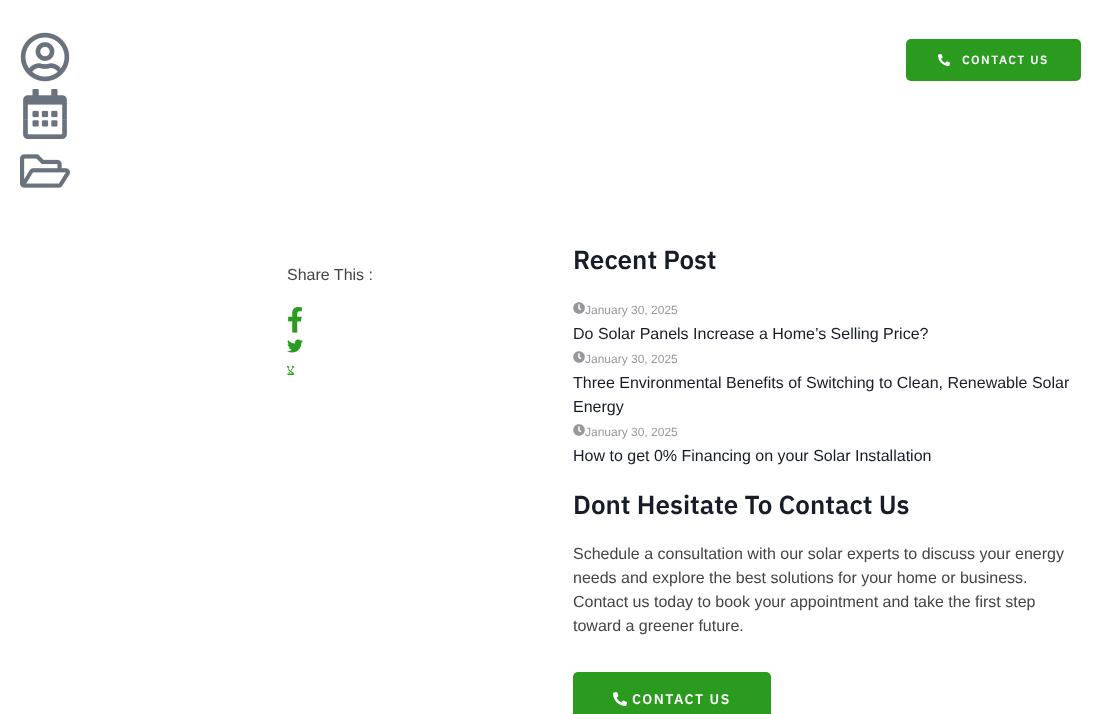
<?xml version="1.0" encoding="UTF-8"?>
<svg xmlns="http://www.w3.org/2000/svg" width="1106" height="714">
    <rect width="100%" height="100%" fill="#FFFFFF"/>
    <image x="23" y="89" width="44" height="50" href="img_03.png"/>
    <rect x="23" y="119" width="44" height="1" fill="#FFFFFF" fill-opacity="0.11"/>
    <rect x="906" y="39" width="175" height="42" rx="5" fill="#2B9B1F"/>
    <image x="938" y="54" width="12" height="12" href="img_01.png"/>
    <text x="962" y="64" font-family="IBM Plex Sans" font-size="12" font-weight="600" letter-spacing="1.5" fill="#FFFFFF">CONTACT US</text>
    <image x="20" y="32" width="50" height="50" href="img_02.png"/>
    <image x="20" y="154" width="50" height="34" href="img_04.png"/>
    <text x="287" y="280" font-family="Liberation Sans" font-size="16" fill="#444444">Share This :</text>
    <image x="288" y="307" width="14" height="26" href="img_05.png"/>
    <image x="287" y="339" width="16" height="14" href="img_06.png"/>
    <text x="295" y="375" font-family="Liberation Serif" font-size="16" direction="rtl" fill="#2B9B1F">צּ</text>
    <text x="573" y="269" font-family="IBM Plex Sans" font-size="26" font-weight="600" fill="#181C28">Recent Post</text>
    <image x="573" y="302" width="12" height="12" href="img_07.png"/>
    <text x="585" y="314" font-family="Liberation Sans" font-size="12" fill="#96989B">January 30, 2025</text>
    <text x="573" y="339" font-family="Liberation Sans" font-size="16" fill="#181C28">Do Solar Panels Increase a Home’s Selling Price?</text>
    <image x="573" y="351" width="12" height="12" href="img_07.png"/>
    <text x="585" y="363" font-family="Liberation Sans" font-size="12" fill="#96989B">January 30, 2025</text>
    <text font-family="Liberation Sans" font-size="16" fill="#181C28">
        <tspan x="573" y="388">Three Environmental Benefits of Switching to Clean, Renewable Solar</tspan>
        <tspan x="573" y="412">Energy</tspan>
    </text>
    <image x="573" y="424" width="12" height="12" href="img_07.png"/>
    <text x="585" y="436" font-family="Liberation Sans" font-size="12" fill="#96989B">January 30, 2025</text>
    <text x="573" y="461" font-family="Liberation Sans" font-size="16" fill="#181C28">How to get 0% Financing on your Solar Installation</text>
    <text x="573" y="514" font-family="IBM Plex Sans" font-size="26" font-weight="600" fill="#181C28">Dont Hesitate To Contact Us</text>
    <text font-family="Liberation Sans" font-size="16" fill="#444444">
        <tspan x="573" y="559">Schedule a consultation with our solar experts to discuss your energy</tspan>
        <tspan x="573" y="583">needs and explore the best solutions for your home or business.</tspan>
        <tspan x="573" y="607">Contact us today to book your appointment and take the first step</tspan>
        <tspan x="573" y="631">toward a greener future.</tspan>
    </text>
    <rect x="573" y="672" width="198" height="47" rx="5" fill="#2B9B1F"/>
    <image x="613" y="692" width="14" height="14" href="img_08.png"/>
    <text x="632" y="704" font-family="IBM Plex Sans" font-size="14" font-weight="600" letter-spacing="1.5" fill="#FFFFFF">CONTACT US</text>
</svg>
